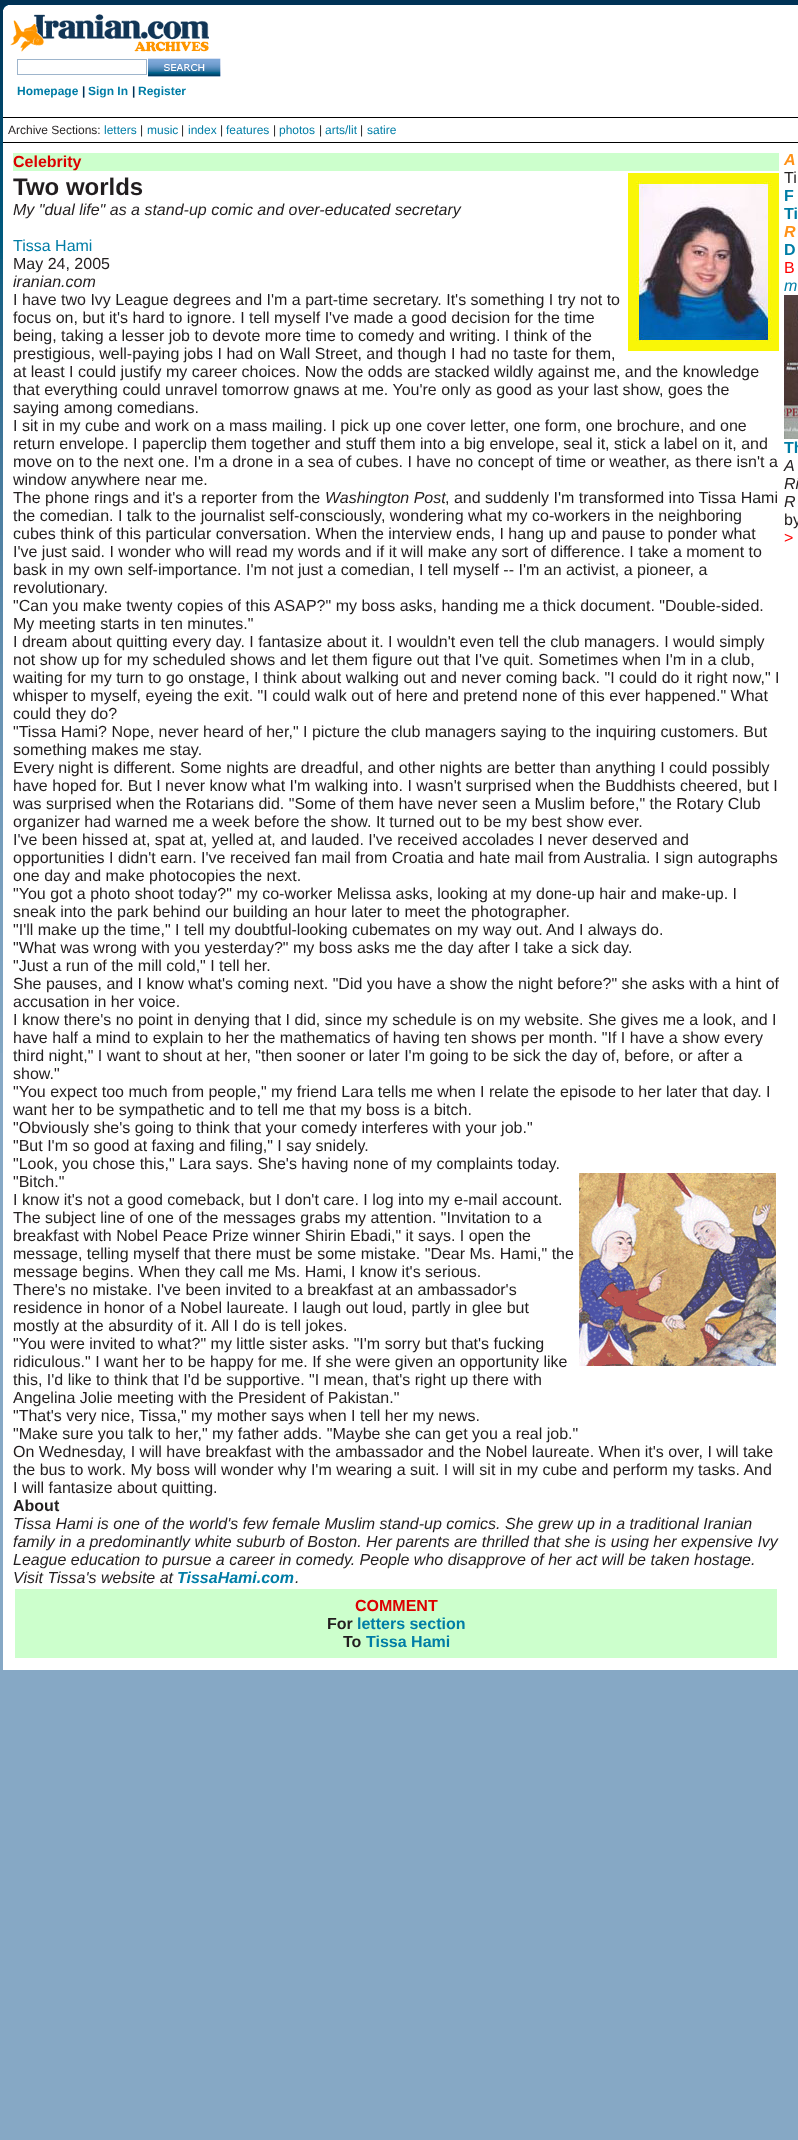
<?xml version="1.0" encoding="UTF-8"?>
<svg xmlns="http://www.w3.org/2000/svg" width="798" height="2140">
    <rect width="100%" height="100%" fill="#86A8C5"/>
    <image x="0" y="0" width="798" height="1053" href="img_01.png"/>
    <rect x="3" y="5" width="795" height="112" fill="#FFFFFF"/>
    <image x="3" y="5" width="5" height="5" href="img_02.png"/>
    <image x="10" y="14" width="199" height="38" href="img_03.png"/>
    <rect x="17.5" y="59.5" width="129" height="15" fill="none" stroke="#9EB5CC"/>
    <image x="148" y="58" width="73" height="19" href="img_04.png"/>
    <text x="17" y="95" font-family="Liberation Sans" font-size="12" font-weight="700" fill="#007DA6">Homepage</text>
    <text x="82" y="95" font-family="Liberation Sans" font-size="12" font-weight="700" fill="#003154">|</text>
    <text x="88" y="95" font-family="Liberation Sans" font-size="12" font-weight="700" fill="#007DA6">Sign In</text>
    <text x="132" y="95" font-family="Liberation Sans" font-size="12" font-weight="700" fill="#003154">|</text>
    <text x="138" y="95" font-family="Liberation Sans" font-size="12" font-weight="700" fill="#007DA6">Register</text>
    <rect x="3" y="118" width="795" height="24" fill="#FFFFFF"/>
    <rect x="3" y="117" width="795" height="1" fill="#000000"/>
    <text x="8" y="134" font-family="Liberation Sans" font-size="12" fill="#221E1F">Archive Sections:</text>
    <text x="104" y="134" font-family="Liberation Sans" font-size="12" fill="#007DA6">letters</text>
    <text x="140" y="134" font-family="Liberation Sans" font-size="12" fill="#221E1F">|</text>
    <text x="147" y="134" font-family="Liberation Sans" font-size="12" fill="#007DA6">music</text>
    <text x="181" y="134" font-family="Liberation Sans" font-size="12" fill="#221E1F">|</text>
    <text x="188" y="134" font-family="Liberation Sans" font-size="12" fill="#007DA6">index</text>
    <text x="220" y="134" font-family="Liberation Sans" font-size="12" fill="#221E1F">|</text>
    <text x="226" y="134" font-family="Liberation Sans" font-size="12" fill="#007DA6">features</text>
    <text x="273" y="134" font-family="Liberation Sans" font-size="12" fill="#221E1F">|</text>
    <text x="279" y="134" font-family="Liberation Sans" font-size="12" fill="#007DA6">photos</text>
    <text x="319" y="134" font-family="Liberation Sans" font-size="12" fill="#221E1F">|</text>
    <text x="325" y="134" font-family="Liberation Sans" font-size="12" fill="#007DA6">arts/lit</text>
    <text x="360" y="134" font-family="Liberation Sans" font-size="12" fill="#221E1F">|</text>
    <text x="367" y="134" font-family="Liberation Sans" font-size="12" fill="#007DA6">satire</text>
    <rect x="3" y="143" width="795" height="1527" fill="#FFFFFF"/>
    <rect x="3" y="142" width="795" height="1" fill="#000000"/>
    <rect x="13" y="153" width="766" height="18" fill="#CCFFCC"/>
    <text x="13" y="167" font-family="Liberation Sans" font-size="16" font-weight="700" fill="#DD0000">Celebrity</text>
    <text x="13" y="195" font-family="Liberation Sans" font-size="24" font-weight="700" fill="#221E1F">Two worlds</text>
    <image x="628" y="173" width="151" height="178" href="img_05.png"/>
    <text x="13" y="215" font-family="Liberation Sans" font-size="16" font-style="italic" fill="#221E1F">My "dual life" as a stand-up comic and over-educated secretary</text>
    <text x="13" y="251" font-family="Liberation Sans" font-size="16" fill="#007DA6">Tissa Hami</text>
    <text x="13" y="269" font-family="Liberation Sans" font-size="16" fill="#221E1F">May 24, 2005</text>
    <text x="13" y="287" font-family="Liberation Sans" font-size="16" font-style="italic" fill="#221E1F">iranian.com</text>
    <text font-family="Liberation Sans" font-size="16" fill="#221E1F">
        <tspan x="13" y="305">I have two Ivy League degrees and I'm a part-time secretary. It's something I try not to</tspan>
        <tspan x="13" y="323">focus on, but it's hard to ignore. I tell myself I've made a good decision for the time</tspan>
        <tspan x="13" y="341">being, taking a lesser job to devote more time to comedy and writing. I think of the</tspan>
        <tspan x="13" y="359">prestigious, well-paying jobs I had on Wall Street, and though I had no taste for them,</tspan>
        <tspan x="13" y="377">at least I could justify my career choices. Now the odds are stacked wildly against me, and the knowledge</tspan>
        <tspan x="13" y="395">that everything could unravel tomorrow gnaws at me. You're only as good as your last show, goes the</tspan>
        <tspan x="13" y="413">saying among comedians.</tspan>
        <tspan x="13" y="431">I sit in my cube and work on a mass mailing. I pick up one cover letter, one form, one brochure, and one</tspan>
        <tspan x="13" y="449">return envelope. I paperclip them together and stuff them into a big envelope, seal it, stick a label on it, and</tspan>
        <tspan x="13" y="467">move on to the next one. I'm a drone in a sea of cubes. I have no concept of time or weather, as there isn't a</tspan>
        <tspan x="13" y="485">window anywhere near me.</tspan>
        <tspan x="13" y="503">The phone rings and it's a reporter from the</tspan>
    </text>
    <text x="325" y="503" font-family="Liberation Sans" font-size="16" font-style="italic" fill="#221E1F">Washington Post</text>
    <text x="445" y="503" font-family="Liberation Sans" font-size="16" fill="#221E1F">, and suddenly I'm transformed into Tissa Hami</text>
    <text font-family="Liberation Sans" font-size="16" fill="#221E1F">
        <tspan x="13" y="521">the comedian. I talk to the journalist self-consciously, wondering what my co-workers in the neighboring</tspan>
        <tspan x="13" y="539">cubes think of this particular conversation. When the interview ends, I hang up and pause to ponder what</tspan>
        <tspan x="13" y="557">I've just said. I wonder who will read my words and if it will make any sort of difference. I take a moment to</tspan>
        <tspan x="13" y="575">bask in my own self-importance. I'm not just a comedian, I tell myself -- I'm an activist, a pioneer, a</tspan>
        <tspan x="13" y="593">revolutionary.</tspan>
        <tspan x="13" y="611">"Can you make twenty copies of this ASAP?" my boss asks, handing me a thick document. "Double-sided.</tspan>
        <tspan x="13" y="629">My meeting starts in ten minutes."</tspan>
        <tspan x="13" y="647">I dream about quitting every day. I fantasize about it. I wouldn't even tell the club managers. I would simply</tspan>
        <tspan x="13" y="665">not show up for my scheduled shows and let them figure out that I've quit. Sometimes when I'm in a club,</tspan>
        <tspan x="13" y="683">waiting for my turn to go onstage, I think about walking out and never coming back. "I could do it right now," I</tspan>
        <tspan x="13" y="701">whisper to myself, eyeing the exit. "I could walk out of here and pretend none of this ever happened." What</tspan>
        <tspan x="13" y="719">could they do?</tspan>
        <tspan x="13" y="737">"Tissa Hami? Nope, never heard of her," I picture the club managers saying to the inquiring customers. But</tspan>
        <tspan x="13" y="755">something makes me stay.</tspan>
        <tspan x="13" y="773">Every night is different. Some nights are dreadful, and other nights are better than anything I could possibly</tspan>
        <tspan x="13" y="791">have hoped for. But I never know what I'm walking into. I wasn't surprised when the Buddhists cheered, but I</tspan>
        <tspan x="13" y="809">was surprised when the Rotarians did. "Some of them have never seen a Muslim before," the Rotary Club</tspan>
        <tspan x="13" y="827">organizer had warned me a week before the show. It turned out to be my best show ever.</tspan>
        <tspan x="13" y="845">I've been hissed at, spat at, yelled at, and lauded. I've received accolades I never deserved and</tspan>
        <tspan x="13" y="863">opportunities I didn't earn. I've received fan mail from Croatia and hate mail from Australia. I sign autographs</tspan>
        <tspan x="13" y="881">one day and make photocopies the next.</tspan>
        <tspan x="13" y="899">"You got a photo shoot today?" my co-worker Melissa asks, looking at my done-up hair and make-up. I</tspan>
        <tspan x="13" y="917">sneak into the park behind our building an hour later to meet the photographer.</tspan>
        <tspan x="13" y="935">"I'll make up the time," I tell my doubtful-looking cubemates on my</tspan>
    </text>
    <text x="483" y="935" font-family="Liberation Sans" font-size="16" fill="#221E1F">way out.</text>
    <text x="546" y="935" font-family="Liberation Sans" font-size="16" fill="#221E1F">And I always do.</text>
    <text font-family="Liberation Sans" font-size="16" fill="#221E1F">
        <tspan x="13" y="953">"What was wrong with you yesterday?" my boss asks me the day after I take a sick day.</tspan>
        <tspan x="13" y="971">"Just a run of the mill cold," I tell her.</tspan>
        <tspan x="13" y="989">She pauses, and I know what's coming next. "Did you have a show the night before?" she asks with a hint of</tspan>
        <tspan x="13" y="1007">accusation in her voice.</tspan>
        <tspan x="13" y="1025">I know there's no point in denying that I did, since my schedule is on my website. She gives me a look, and I</tspan>
        <tspan x="13" y="1043">have half a mind to explain to her the mathematics of having ten shows per month. "If I have a show every</tspan>
        <tspan x="13" y="1061">third night," I want to shout at her, "then sooner or later I'm going to be sick the day of, before, or after a</tspan>
        <tspan x="13" y="1079">show."</tspan>
        <tspan x="13" y="1097">"You expect too much from people," my friend Lara tells me when I relate the episode to her later that day. I</tspan>
        <tspan x="13" y="1115">want her to be sympathetic and to tell me that my boss is a bitch.</tspan>
        <tspan x="13" y="1133">"Obviously she's going to think that your comedy interferes with your job."</tspan>
        <tspan x="13" y="1151">"But I'm so good at faxing and filing," I say snidely.</tspan>
        <tspan x="13" y="1169">"Look, you chose this," Lara says. She's having none of my complaints today.</tspan>
        <tspan x="13" y="1187">"Bitch."</tspan>
    </text>
    <image x="579" y="1173" width="197" height="193" href="img_06.png"/>
    <text font-family="Liberation Sans" font-size="16" fill="#221E1F">
        <tspan x="13" y="1205">I know it's not a good comeback, but I don't care. I log into my e-mail account.</tspan>
        <tspan x="13" y="1223">The subject line of one of the messages grabs my attention. "Invitation to a</tspan>
        <tspan x="13" y="1241">breakfast with Nobel Peace Prize winner Shirin Ebadi," it says. I open the</tspan>
        <tspan x="13" y="1259">message, telling myself that there must be some mistake. "Dear Ms. Hami," the</tspan>
        <tspan x="13" y="1277">message begins. When they call me Ms. Hami, I know it's serious.</tspan>
        <tspan x="13" y="1295">There's no mistake. I've been invited to a breakfast at an ambassador's</tspan>
        <tspan x="13" y="1313">residence in honor of a Nobel laureate. I laugh out loud, partly in glee but</tspan>
        <tspan x="13" y="1331">mostly at the absurdity of it. All I do is tell jokes.</tspan>
        <tspan x="13" y="1349">"You were invited to what?" my little sister asks. "I'm sorry but that's fucking</tspan>
        <tspan x="13" y="1367">ridiculous." I want her to be happy for me. If she were given an opportunity like</tspan>
        <tspan x="13" y="1385">this, I'd like to think that I'd be supportive. "I mean, that's right up there with</tspan>
        <tspan x="13" y="1403">Angelina Jolie meeting with the President of Pakistan."</tspan>
        <tspan x="13" y="1421">"That's very nice, Tissa," my mother says when I tell her my news.</tspan>
        <tspan x="13" y="1439">"Make sure you talk to her," my father adds. "Maybe she can get you a real job."</tspan>
        <tspan x="13" y="1457">On Wednesday, I will have breakfast with the ambassador and the Nobel laureate. When it's over, I will take</tspan>
        <tspan x="13" y="1475">the bus to work. My boss will wonder why I'm wearing a suit. I will sit in my cube and perform my tasks. And</tspan>
        <tspan x="13" y="1493">I will fantasize about quitting.</tspan>
    </text>
    <text x="13" y="1511" font-family="Liberation Sans" font-size="16" font-weight="700" fill="#221E1F">About</text>
    <text font-family="Liberation Sans" font-size="16" font-style="italic" fill="#221E1F">
        <tspan x="13" y="1529">Tissa Hami is one of the world's few female Muslim stand-up comics. She grew up in a traditional Iranian</tspan>
        <tspan x="13" y="1547">family in a predominantly white suburb of Boston. Her parents are thrilled that she is using her expensive Ivy</tspan>
        <tspan x="13" y="1565">League education to pursue a career in comedy. People who disapprove of her act will be taken hostage.</tspan>
        <tspan x="13" y="1583">Visit Tissa's website at</tspan>
    </text>
    <text x="177" y="1583" font-family="Liberation Sans" font-size="16" font-weight="700" font-style="italic" fill="#007DA6">TissaHami.com</text>
    <text x="295" y="1583" font-family="Liberation Sans" font-size="16" font-style="italic" fill="#221E1F">.</text>
    <rect x="15" y="1589" width="762" height="69" fill="#CCFFCC"/>
    <text x="355" y="1611" font-family="Liberation Sans" font-size="16" font-weight="700" fill="#DD0000">COMMENT</text>
    <text x="327" y="1629" font-family="Liberation Sans" font-size="16" font-weight="700" fill="#221E1F">For</text>
    <text x="357" y="1629" font-family="Liberation Sans" font-size="16" font-weight="700" fill="#007DA6">letters section</text>
    <text x="343" y="1647" font-family="Liberation Sans" font-size="16" font-weight="700" fill="#221E1F">To</text>
    <text x="366" y="1647" font-family="Liberation Sans" font-size="16" font-weight="700" fill="#007DA6">Tissa Hami</text>
    <text x="784" y="165" font-family="Liberation Sans" font-size="16" font-weight="700" font-style="italic" fill="#FF9218">A</text>
    <text x="784" y="183" font-family="Liberation Sans" font-size="16" fill="#221E1F">Ti</text>
    <text font-family="Liberation Sans" font-size="16" font-weight="700" fill="#007DA6">
        <tspan x="784" y="201">F</tspan>
        <tspan x="784" y="219">Ti</tspan>
    </text>
    <text x="784" y="237" font-family="Liberation Sans" font-size="16" font-weight="700" font-style="italic" fill="#FF9218">R</text>
    <text x="784" y="255" font-family="Liberation Sans" font-size="16" font-weight="700" fill="#007DA6">D</text>
    <text x="784" y="273" font-family="Liberation Sans" font-size="16" fill="#FF0000">B</text>
    <text x="784" y="291" font-family="Liberation Sans" font-size="16" font-style="italic" fill="#007DA6">m</text>
    <image x="784" y="295" width="14" height="144" href="img_07.png"/>
    <text x="784" y="453" font-family="Liberation Sans" font-size="16" font-weight="700" fill="#007DA6">Th</text>
    <text font-family="Liberation Sans" font-size="16" font-style="italic" fill="#221E1F">
        <tspan x="784" y="471">A</tspan>
        <tspan x="784" y="489">Ri</tspan>
        <tspan x="784" y="507">R</tspan>
    </text>
    <text x="784" y="525" font-family="Liberation Sans" font-size="16" fill="#221E1F">by</text>
    <text x="784" y="543" font-family="Liberation Sans" font-size="16" fill="#FF0000">&gt;</text>
</svg>
